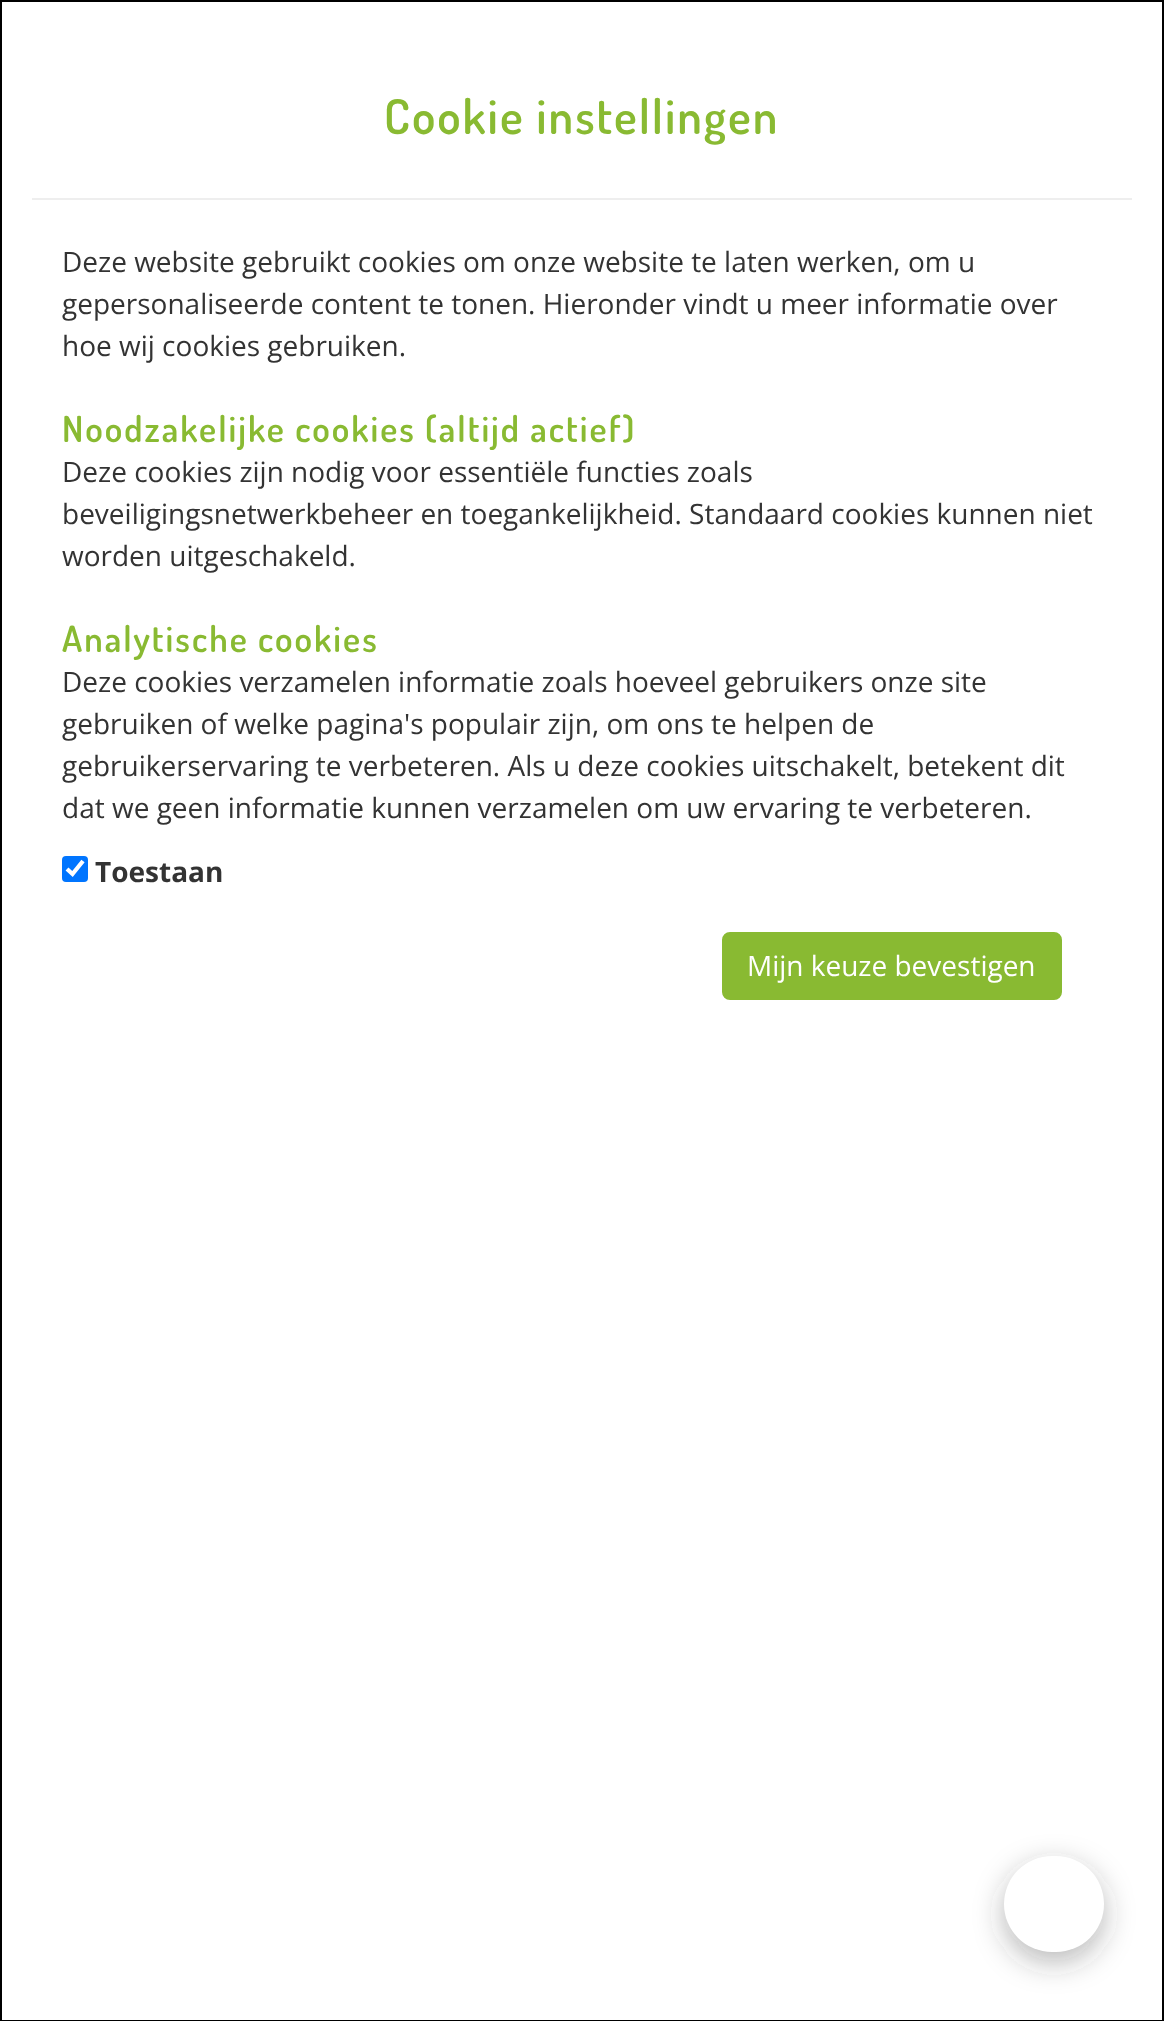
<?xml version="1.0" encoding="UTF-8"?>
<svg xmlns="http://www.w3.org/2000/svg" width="1164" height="2021">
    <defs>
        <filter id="blur1" x="-50%" y="-200%" width="200%" height="500%"><feGaussianBlur stdDeviation="15"/></filter>
    </defs>
    <rect width="100%" height="100%" fill="#FFFFFF"/>
    <rect x="1" y="1" width="1162" height="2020" fill="none" stroke="#000000" stroke-width="2"/>
    <text x="384" y="134" font-family="Dosis" font-size="48" font-weight="600" letter-spacing="2" fill="#89BA32">Cookie instellingen</text>
    <rect x="32" y="198" width="1100" height="2" fill="#EEEEEE"/>
    <text font-family="Open Sans" font-size="28" fill="#333333">
        <tspan x="62" y="272">Deze website gebruikt cookies om onze website te laten werken, om u</tspan>
        <tspan x="62" y="314">gepersonaliseerde content te tonen. Hieronder vindt u meer informatie over</tspan>
        <tspan x="62" y="356">hoe wij cookies gebruiken.</tspan>
    </text>
    <text x="62" y="442" font-family="Dosis" font-size="36" font-weight="600" letter-spacing="2" fill="#89BA32">Noodzakelijke cookies (altijd actief)</text>
    <text font-family="Open Sans" font-size="28" fill="#333333">
        <tspan x="62" y="482">Deze cookies zijn nodig voor essentiële functies zoals</tspan>
        <tspan x="62" y="524">beveiligingsnetwerkbeheer en toegankelijkheid. Standaard cookies kunnen niet</tspan>
        <tspan x="62" y="566">worden uitgeschakeld.</tspan>
    </text>
    <text x="62" y="652" font-family="Dosis" font-size="36" font-weight="600" letter-spacing="2" fill="#89BA32">Analytische cookies</text>
    <text font-family="Open Sans" font-size="28" fill="#333333">
        <tspan x="62" y="692">Deze cookies verzamelen informatie zoals hoeveel gebruikers onze site</tspan>
        <tspan x="62" y="734">gebruiken of welke pagina's populair zijn, om ons te helpen de</tspan>
        <tspan x="62" y="776">gebruikerservaring te verbeteren. Als u deze cookies uitschakelt, betekent dit</tspan>
        <tspan x="62" y="818">dat we geen informatie kunnen verzamelen om uw ervaring te verbeteren.</tspan>
    </text>
    <rect x="62" y="856" width="26" height="26" rx="4" fill="#0075FF"/>
    <path d="M 67 869 L 72.5 874 L 83 861" fill="none" stroke="#FFFFFF" stroke-width="4.2"/>
    <text x="95" y="882" font-family="Open Sans" font-size="28" font-weight="700" fill="#333333">Toestaan</text>
    <rect x="723" y="933" width="338" height="66" rx="7" fill="#89BA32" stroke="#89BA32" stroke-width="2"/>
    <text x="747" y="976" font-family="Open Sans" font-size="28" fill="#FFFFFF">Mijn keuze bevestigen</text>
    <rect x="1004" y="1866" width="100" height="96" rx="48" fill="#323232" fill-opacity="0.35" filter="url(#blur1)"/>
    <rect x="1004" y="1856" width="100" height="96" rx="48" fill="#FFFFFF"/>
</svg>
